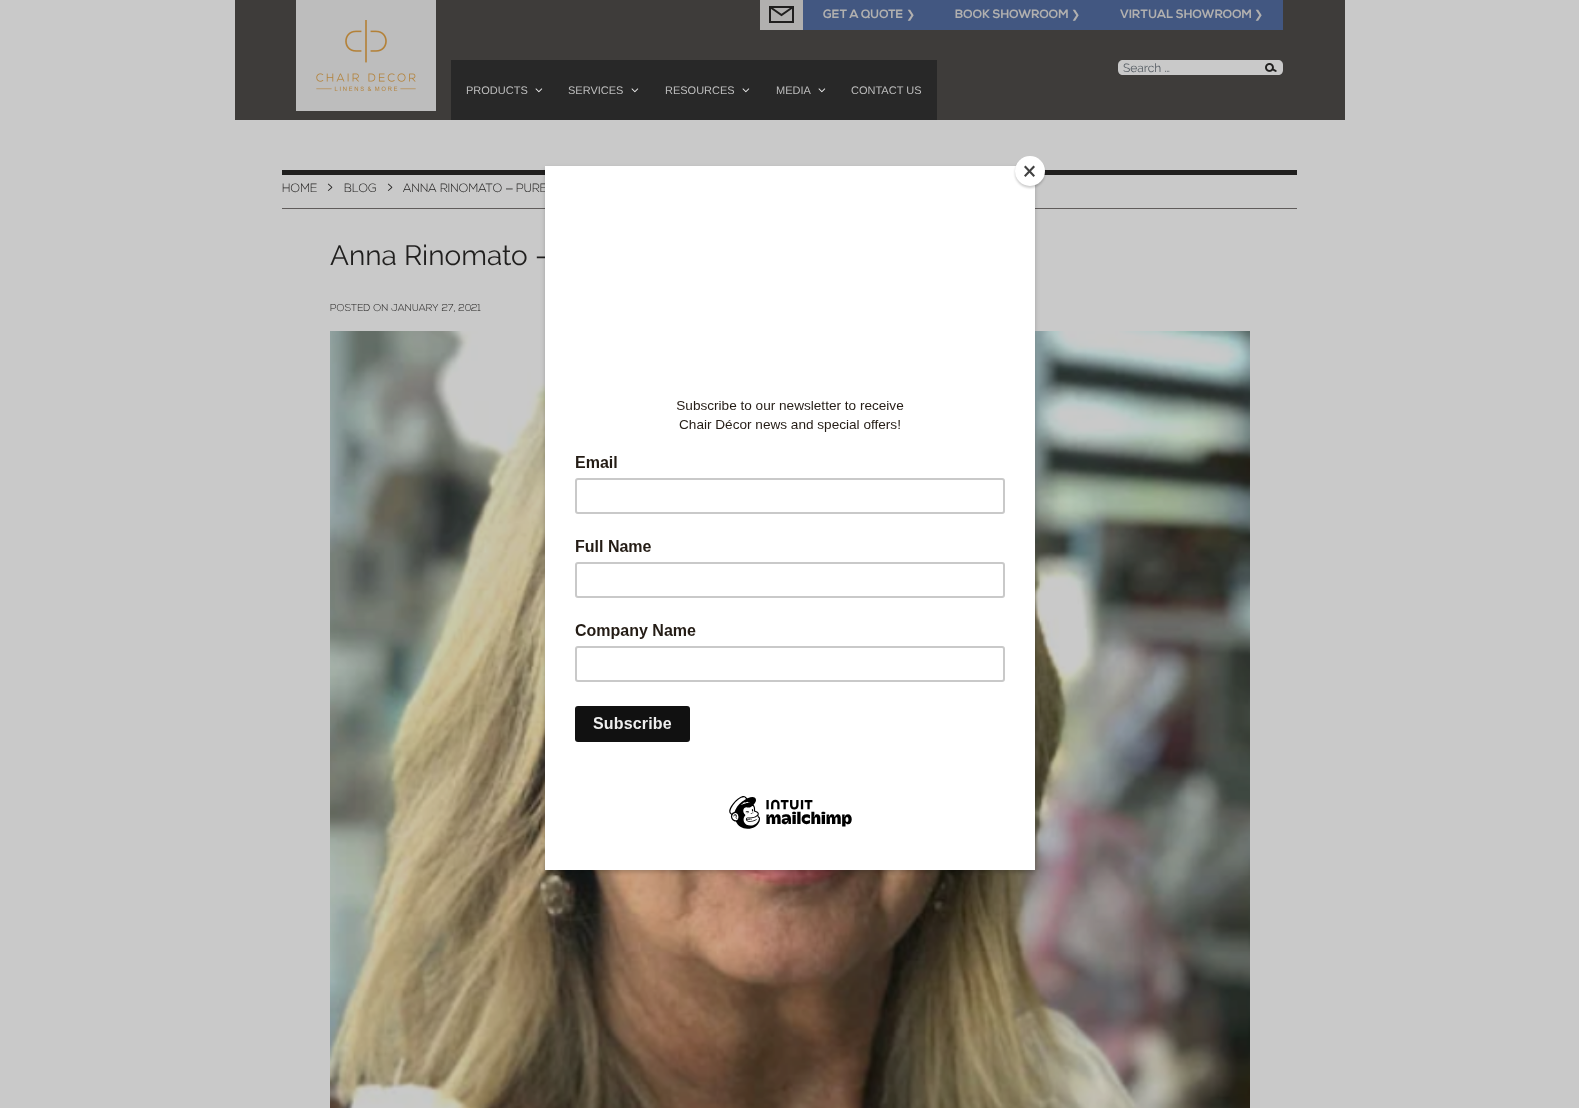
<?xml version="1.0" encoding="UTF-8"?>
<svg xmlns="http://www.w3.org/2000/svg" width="1579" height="1108">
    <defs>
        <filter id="blur1" x="-50%" y="-200%" width="200%" height="500%"><feGaussianBlur stdDeviation="2"/></filter>
        <filter id="blur2" x="-50%" y="-200%" width="200%" height="500%"><feGaussianBlur stdDeviation="1"/></filter>
    </defs>
    <rect width="100%" height="100%" fill="#C9C9C9"/>
    <rect x="235" y="0" width="1110" height="120" fill="#3E3C3A"/>
    <rect x="296" y="0" width="140" height="111" fill="#BDBDBD"/>
    <image x="316" y="20" width="100" height="71" href="img_01.png"/>
    <rect x="760" y="0" width="43" height="30" fill="#B1B0AF"/>
    <rect x="770" y="7" width="23" height="15" fill="none" stroke="#201F1E" stroke-width="2"/>
    <path d="M 770 7 L 781.5 15 L 793 7" fill="none" stroke="#201F1E" stroke-width="2"/>
    <rect x="803" y="0" width="480" height="30" fill="#425781"/>
    <text x="823" y="18" font-family="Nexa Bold" font-size="12" font-weight="700" fill="#B1B0AF">GET A QUOTE</text>
    <text x="906" y="18" font-family="DejaVu Sans" font-size="11" fill="#B1B0AF">❯</text>
    <text x="955" y="18" font-family="Nexa Bold" font-size="12" font-weight="700" fill="#B1B0AF">BOOK SHOWROOM</text>
    <text x="1071" y="18" font-family="DejaVu Sans" font-size="11" fill="#B1B0AF">❯</text>
    <text x="1120" y="18" font-family="Nexa Bold" font-size="12" font-weight="700" fill="#B1B0AF">VIRTUAL SHOWROOM</text>
    <text x="1254" y="18" font-family="DejaVu Sans" font-size="11" fill="#B1B0AF">❯</text>
    <path d="M 1123 60 H 1260 V 75 H 1123 C 1120 75 1118 73 1118 70 V 65 C 1118 62 1120 60 1123 60 Z" fill="#C9C9C9"/>
    <text x="1123" y="72" font-family="Raleway" font-size="12" fill="#555C63">Search …</text>
    <path d="M 1259 60 H 1278 C 1281 60 1283 62 1283 65 V 70 C 1283 73 1281 75 1278 75 H 1259 Z" fill="#C9C9C9"/>
    <image x="1265" y="63" width="12" height="9" href="img_02.png"/>
    <rect x="451" y="60" width="486" height="60" fill="#282828"/>
    <text x="466" y="94" font-family="Liberation Sans" font-size="11" fill="#BEBEBE">PRODUCTS</text>
    <image x="535" y="88" width="8" height="5" href="img_03.png"/>
    <text x="568" y="94" font-family="Liberation Sans" font-size="11" fill="#BEBEBE">SERVICES</text>
    <image x="631" y="88" width="8" height="5" href="img_03.png"/>
    <text x="665" y="94" font-family="Liberation Sans" font-size="11" fill="#BEBEBE">RESOURCES</text>
    <image x="742" y="88" width="8" height="5" href="img_03.png"/>
    <text x="776" y="94" font-family="Liberation Sans" font-size="11" fill="#BEBEBE">MEDIA</text>
    <image x="818" y="88" width="8" height="5" href="img_03.png"/>
    <text x="851" y="94" font-family="Liberation Sans" font-size="11" fill="#BEBEBE">CONTACT US</text>
    <rect x="282" y="170" width="1015" height="5" fill="#201F1E"/>
    <rect x="282" y="208" width="1015" height="1" fill="#605C5B"/>
    <text x="282" y="192" font-family="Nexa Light" font-size="12" font-weight="300" fill="#201F1E">HOME</text>
    <text x="327" y="193" font-family="Nexa Light" font-size="18" font-weight="300" fill="#201F1E">&gt;</text>
    <text x="344" y="192" font-family="Nexa Light" font-size="12" font-weight="300" fill="#201F1E">BLOG</text>
    <text x="387" y="193" font-family="Nexa Light" font-size="18" font-weight="300" fill="#201F1E">&gt;</text>
    <text x="403" y="192" font-family="Nexa Light" font-size="12" font-weight="300" fill="#201F1E">ANNA RINOMATO</text>
    <text x="506" y="192" font-family="Liberation Sans" font-size="12" fill="#201F1E">–</text>
    <text x="516" y="192" font-family="Nexa Light" font-size="12" font-weight="300" fill="#201F1E">PURE</text>
    <text x="330" y="265" font-family="Raleway" font-size="28" fill="#201F1E">Anna Rinomato –</text>
    <text x="330" y="311" font-family="Nexa Light" font-size="10" font-weight="300" fill="#201F1E">POSTED ON JANUARY 27, 2021</text>
    <image x="330" y="331" width="920" height="777" href="img_04.png"/>
    <rect x="545" y="168" width="490" height="704" fill="#000000" fill-opacity="0.2" filter="url(#blur1)"/>
    <image x="545" y="166" width="490" height="704" href="img_05.png"/>
    <rect x="1015" y="158" width="30" height="30" rx="15" fill="#000000" fill-opacity="0.2" filter="url(#blur2)"/>
    <circle cx="1030" cy="171" r="15" fill="#FFFFFF"/>
    <path d="M 1033.5 165.5 L 1035 167 L 1025.5 177 L 1024 175.5 Z" fill="#414141"/>
    <path d="M 1024 167 L 1025.5 165.5 L 1035 175.5 L 1033.5 177 Z" fill="#414141"/>
</svg>
